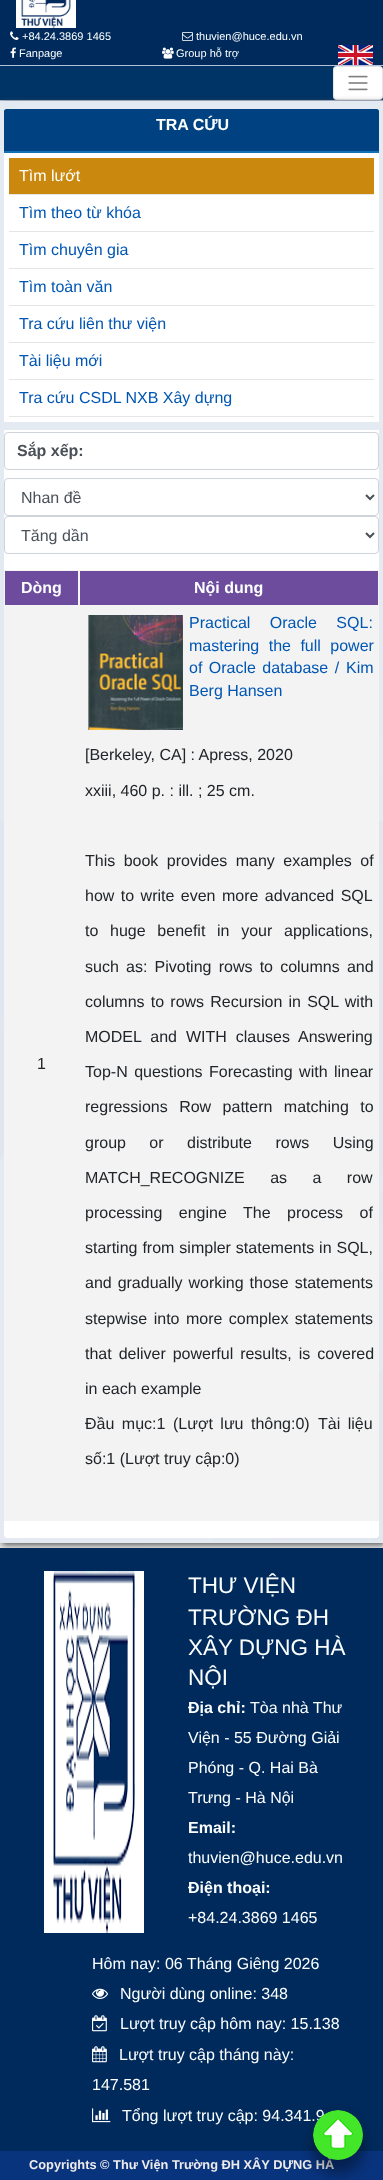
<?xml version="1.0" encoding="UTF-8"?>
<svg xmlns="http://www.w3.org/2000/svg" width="383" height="2180">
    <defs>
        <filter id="blur1" x="-50%" y="-200%" width="200%" height="500%"><feGaussianBlur stdDeviation="2"/></filter>
        <clipPath id="clip1"><path d="M 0 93 H 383 V 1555 H 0 Z M 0 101 H 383 V 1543 H 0 Z" clip-rule="evenodd"/></clipPath>
        <filter id="blur2" x="-50%" y="-200%" width="200%" height="500%"><feGaussianBlur stdDeviation="3"/></filter>
        <filter id="blur3" x="-50%" y="-200%" width="200%" height="500%"><feGaussianBlur stdDeviation="7"/></filter>
    </defs>
    <rect width="100%" height="100%" fill="#B5C2D9"/>
    <rect x="0" y="68" width="383" height="34" fill="#000000" fill-opacity="0.07" filter="url(#blur1)"/>
    <rect x="0" y="0" width="383" height="65" fill="#002A5C"/>
    <image x="16" y="0" width="60" height="28" href="img_01.png"/>
    <image x="10" y="31" width="9" height="9" href="img_02.png"/>
    <text x="22" y="40" font-family="Liberation Sans" font-size="11" fill="#FCFFFF">+84.24.3869 1465</text>
    <image x="182" y="32" width="11" height="9" href="img_03.png"/>
    <text x="196" y="40" font-family="Liberation Sans" font-size="11" fill="#FCFFFF">thuvien@huce.edu.vn</text>
    <image x="10" y="47" width="6" height="11" href="img_04.png"/>
    <text x="19" y="57" font-family="Liberation Sans" font-size="11" fill="#FCFFFF">Fanpage</text>
    <image x="162" y="47" width="12" height="12" href="img_05.png"/>
    <text x="176" y="57" font-family="Liberation Sans" font-size="11" fill="#FCFFFF">Group hỗ trợ</text>
    <image x="338" y="45" width="35" height="20" href="img_06.png"/>
    <rect x="0" y="66" width="383" height="34" fill="#003366"/>
    <rect x="333" y="66" width="50" height="34" rx="4" fill="#FFFFFF"/>
    <rect x="333.5" y="66.5" width="49" height="33" rx="3.5" fill="none" stroke="#000000" stroke-opacity="0.1"/>
    <image x="348" y="75" width="20" height="16" href="img_07.png"/>
    <image x="0" y="101" width="383" height="1447" href="img_08.png"/>
    <g clip-path="url(#clip1)">
        <rect x="2" y="103" width="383" height="1442" fill="#555555" filter="url(#blur2)"/>
    </g>
    <rect x="4" y="109" width="375" height="313" fill="#FFFFFF"/>
    <path d="M 6 109 H 377 C 378 109 379 110 379 111 V 153 H 4 V 111 C 4 110 5 109 6 109 Z" fill="#004281"/>
    <rect x="4" y="151" width="375" height="2" fill="#1071B6"/>
    <text x="156" y="130" font-family="Liberation Sans" font-size="16" font-weight="700" fill="#FCFFFF">TRA CỨU</text>
    <rect x="9" y="158" width="365" height="36" fill="#CB880F"/>
    <rect x="9" y="194" width="365" height="1" fill="#E5E5E5"/>
    <text x="19" y="181" font-family="Liberation Sans" font-size="16" fill="#FCFFFF">Tìm lướt</text>
    <rect x="9" y="231" width="365" height="1" fill="#E5E5E5"/>
    <text x="19" y="218" font-family="Liberation Sans" font-size="16" fill="#0056B3">Tìm theo từ khóa</text>
    <rect x="9" y="268" width="365" height="1" fill="#E5E5E5"/>
    <text x="19" y="255" font-family="Liberation Sans" font-size="16" fill="#0056B3">Tìm chuyên gia</text>
    <rect x="9" y="305" width="365" height="1" fill="#E5E5E5"/>
    <text x="19" y="292" font-family="Liberation Sans" font-size="16" fill="#0056B3">Tìm toàn văn</text>
    <rect x="9" y="342" width="365" height="1" fill="#E5E5E5"/>
    <text x="19" y="329" font-family="Liberation Sans" font-size="16" fill="#0056B3">Tra cứu liên thư viện</text>
    <rect x="9" y="379" width="365" height="1" fill="#E5E5E5"/>
    <text x="19" y="366" font-family="Liberation Sans" font-size="16" fill="#0056B3">Tài liệu mới</text>
    <rect x="9" y="416" width="365" height="1" fill="#E5E5E5"/>
    <text x="19" y="403" font-family="Liberation Sans" font-size="16" fill="#0056B3">Tra cứu CSDL NXB Xây dựng</text>
    <path d="M 4 430 H 379 V 1535 C 379 1536.5 377.5 1538 376 1538 H 7 C 5.5 1538 4 1536.5 4 1535 Z" fill="#FFFFFF"/>
    <rect x="4.5" y="432.5" width="374" height="37" rx="3.5" fill="none" stroke="#CED4DA"/>
    <text x="17" y="456" font-family="Liberation Sans" font-size="16" font-weight="700" fill="#495057">Sắp xếp:</text>
    <rect x="4.5" y="478.5" width="374" height="37" rx="3.5" fill="none" stroke="#CED4DA"/>
    <path d="M 366 495 L 370 499 L 374 495" fill="none" stroke="#495057" stroke-width="2"/>
    <text x="21" y="503" font-family="Liberation Sans" font-size="16" fill="#495057">Nhan đề</text>
    <rect x="4.5" y="516.5" width="374" height="37" rx="3.5" fill="none" stroke="#CED4DA"/>
    <path d="M 366 533 L 370 537 L 374 533" fill="none" stroke="#495057" stroke-width="2"/>
    <text x="21" y="541" font-family="Liberation Sans" font-size="16" fill="#495057">Tăng dần</text>
    <rect x="5" y="571" width="373" height="34" fill="#6E4C9D"/>
    <rect x="4" y="570" width="375" height="1" fill="#F4F4F4"/>
    <rect x="78" y="570" width="1" height="37" fill="#F4F4F4"/>
    <rect x="4" y="605" width="75" height="2" fill="#F4F4F4"/>
    <rect x="4" y="570" width="1" height="37" fill="#F4F4F4"/>
    <text x="21" y="593" font-family="Liberation Sans" font-size="16" font-weight="700" fill="#FCFFFF">Dòng</text>
    <rect x="378" y="570" width="1" height="37" fill="#F4F4F4"/>
    <rect x="79" y="605" width="300" height="2" fill="#F4F4F4"/>
    <rect x="79" y="570" width="1" height="37" fill="#F4F4F4"/>
    <text x="194" y="593" font-family="Liberation Sans" font-size="16" font-weight="700" fill="#FCFFFF">Nội dung</text>
    <rect x="4" y="607" width="375" height="914" fill="#F3F3F3"/>
    <text x="37" y="1069" font-family="Liberation Sans" font-size="16" fill="#212529">1</text>
    <image x="88" y="615" width="95" height="115" href="img_09.png"/>
    <text font-family="Liberation Sans" font-size="16" fill="#0056B3">
        <tspan x="189" y="628" word-spacing="15">Practical Oracle SQL:</tspan>
        <tspan x="189" y="651" word-spacing="5">mastering the full power</tspan>
        <tspan x="189" y="673" word-spacing="2">of Oracle database /</tspan>
    </text>
    <text x="346" y="673" font-family="Liberation Sans" font-size="16" fill="#0056B3">Kim</text>
    <text x="189" y="696" font-family="Liberation Sans" font-size="16" fill="#0056B3">Berg Hansen</text>
    <text x="85" y="760" font-family="Liberation Sans" font-size="16" fill="#212529">[Berkeley, CA] : Apress, 2020</text>
    <text x="85" y="796" font-family="Liberation Sans" font-size="16" fill="#212529">xxiii, 460 p. : ill. ; 25 cm.</text>
    <text x="85" y="866" word-spacing="4" font-family="Liberation Sans" font-size="16" fill="#212529">This book provides many examples of</text>
    <text x="85" y="901" word-spacing="2" font-family="Liberation Sans" font-size="16" fill="#212529">how to write even more advanced SQL</text>
    <text x="85" y="936" word-spacing="7.25" font-family="Liberation Sans" font-size="16" fill="#212529">to huge benefit in your applications,</text>
    <text x="85" y="972" word-spacing="2.75" font-family="Liberation Sans" font-size="16" fill="#212529">such as: Pivoting rows to columns and</text>
    <text x="85" y="1007" word-spacing="1.75" font-family="Liberation Sans" font-size="16" fill="#212529">columns to rows Recursion in SQL with</text>
    <text x="85" y="1042" word-spacing="4.5" font-family="Liberation Sans" font-size="16" fill="#212529">MODEL and WITH clauses Answering</text>
    <text x="85" y="1077" word-spacing="2" font-family="Liberation Sans" font-size="16" fill="#212529">Top-N questions Forecasting with linear</text>
    <text x="85" y="1112" word-spacing="7" font-family="Liberation Sans" font-size="16" fill="#212529">regressions Row pattern matching to</text>
    <text x="85" y="1148" word-spacing="19" font-family="Liberation Sans" font-size="16" fill="#212529">group or distribute rows Using</text>
    <text x="85" y="1183" word-spacing="21" font-family="Liberation Sans" font-size="16" fill="#212529">MATCH_RECOGNIZE as a row</text>
    <text x="85" y="1218" word-spacing="12" font-family="Liberation Sans" font-size="16" fill="#212529">processing engine The process of</text>
    <text x="85" y="1253" word-spacing="0.5" font-family="Liberation Sans" font-size="16" fill="#212529">starting from simpler statements in SQL,</text>
    <text x="85" y="1288" word-spacing="1.5" font-family="Liberation Sans" font-size="16" fill="#212529">and gradually working those statements</text>
    <text x="85" y="1324" word-spacing="2" font-family="Liberation Sans" font-size="16" fill="#212529">stepwise into more complex statements</text>
    <text x="85" y="1359" word-spacing="2.5" font-family="Liberation Sans" font-size="16" fill="#212529">that deliver powerful results, is covered</text>
    <text x="85" y="1394" font-family="Liberation Sans" font-size="16" fill="#212529">in each example</text>
    <text x="85" y="1429" word-spacing="3" font-family="Liberation Sans" font-size="16" fill="#212529">Đầu mục:1</text>
    <text x="173" y="1429" word-spacing="3" font-family="Liberation Sans" font-size="16" fill="#212529">(Lượt lưu thông:0)</text>
    <text x="318" y="1429" word-spacing="3" font-family="Liberation Sans" font-size="16" fill="#212529">Tài liệu</text>
    <text x="85" y="1464" font-family="Liberation Sans" font-size="16" fill="#212529">số:1 (Lượt truy cập:0)</text>
    <rect x="0" y="1548" width="383" height="603" fill="#002A5C"/>
    <rect x="44" y="1571" width="100" height="362" fill="#FFFFFF"/>
    <image x="53" y="1571" width="82" height="362" href="img_10.png"/>
    <text font-family="Liberation Sans" font-size="22.5" fill="#FCFFFF">
        <tspan x="188" y="1593">THƯ VIỆN</tspan>
        <tspan x="188" y="1625">TRƯỜNG ĐH</tspan>
        <tspan x="188" y="1655">XÂY DỰNG HÀ</tspan>
        <tspan x="188" y="1685">NỘI</tspan>
    </text>
    <text x="188" y="1713" font-family="Liberation Sans" font-size="16" font-weight="700" fill="#FCFFFF">Địa chỉ:</text>
    <text x="250" y="1713" font-family="Liberation Sans" font-size="16" fill="#FCFFFF">Tòa nhà Thư</text>
    <text font-family="Liberation Sans" font-size="16" fill="#FCFFFF">
        <tspan x="188" y="1743">Viện - 55 Đường Giải</tspan>
        <tspan x="188" y="1773">Phóng - Q. Hai Bà</tspan>
        <tspan x="188" y="1803">Trưng - Hà Nội</tspan>
    </text>
    <text x="188" y="1833" font-family="Liberation Sans" font-size="16" font-weight="700" fill="#FCFFFF">Email:</text>
    <text x="188" y="1863" font-family="Liberation Sans" font-size="16" fill="#FCFFFF">thuvien@huce.edu.vn</text>
    <text x="188" y="1893" font-family="Liberation Sans" font-size="16" font-weight="700" fill="#FCFFFF">Điện thoại:</text>
    <text x="188" y="1923" font-family="Liberation Sans" font-size="16" fill="#FCFFFF">+84.24.3869 1465</text>
    <text x="92" y="1969" font-family="Liberation Sans" font-size="16" fill="#FCFFFF">Hôm nay: 06 Tháng Giêng 2026</text>
    <image x="92" y="1988" width="16" height="11" href="img_11.png"/>
    <text x="120" y="1999" font-family="Liberation Sans" font-size="16" fill="#FCFFFF">Người dùng online: 348</text>
    <image x="92" y="2015" width="15" height="17" href="img_12.png"/>
    <text x="120" y="2029" font-family="Liberation Sans" font-size="16" fill="#FCFFFF">Lượt truy cập hôm nay: 15.138</text>
    <image x="92" y="2046" width="15" height="17" href="img_13.png"/>
    <text x="119" y="2060" font-family="Liberation Sans" font-size="16" fill="#FCFFFF">Lượt truy cập tháng này:</text>
    <text x="92" y="2090" font-family="Liberation Sans" font-size="16" fill="#FCFFFF">147.581</text>
    <image x="92" y="2108" width="19" height="15" href="img_14.png"/>
    <text x="122" y="2121" font-family="Liberation Sans" font-size="16" fill="#FCFFFF">Tổng lượt truy cập: 94.341.9</text>
    <rect x="0" y="2151" width="383" height="29" fill="#08337D"/>
    <text x="29" y="2169" font-family="Liberation Sans" font-size="12.8" font-weight="700" fill="#EDEBEB">Copyrights © Thư Viện Trường ĐH XÂY DỰNG HÀ</text>
    <rect x="313" y="2124" width="50" height="50" rx="25" fill="#000000" fill-opacity="0.35" filter="url(#blur3)"/>
    <rect x="313" y="2110" width="50" height="50" rx="25" fill="#000000" fill-opacity="0.12" filter="url(#blur3)"/>
    <image x="313" y="2110" width="50" height="50" href="img_15.png"/>
</svg>
